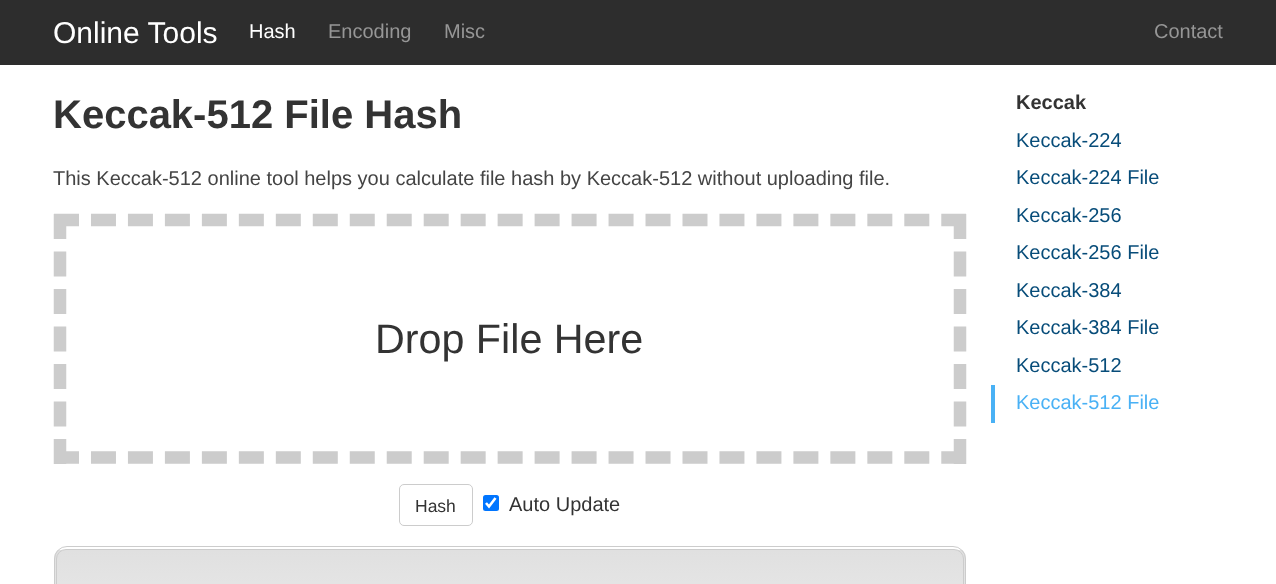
<?xml version="1.0" encoding="UTF-8"?>
<svg xmlns="http://www.w3.org/2000/svg" width="1276" height="584">
    <defs>
        <clipPath id="clip1"><rect x="54" y="546" width="912" height="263" rx="13"/></clipPath>
        <linearGradient id="g1" gradientUnits="userSpaceOnUse" x1="510" y1="550" x2="510" y2="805"><stop offset="0" stop-color="#E0E0E0"/><stop offset="1" stop-color="#FFFFFF"/></linearGradient>
    </defs>
    <rect width="100%" height="100%" fill="#FFFFFF"/>
    <rect x="0" y="0" width="1276" height="65" fill="#2D2D2D"/>
    <text x="53" y="43" font-family="Liberation Sans" font-size="30" fill="#FFFFFF">Online Tools</text>
    <text x="249" y="38" font-family="Liberation Sans" font-size="20" fill="#FFFFFF">Hash</text>
    <text x="328" y="38" font-family="Liberation Sans" font-size="20" fill="#969696">Encoding</text>
    <text x="444" y="38" font-family="Liberation Sans" font-size="20" fill="#969696">Misc</text>
    <text x="1154" y="38" font-family="Liberation Sans" font-size="20" fill="#969696">Contact</text>
    <text x="53" y="128" font-family="Liberation Sans" font-size="40" font-weight="700" fill="#333333">Keccak-512 File Hash</text>
    <text x="53" y="185" font-family="Liberation Sans" font-size="20" fill="#444444">This Keccak-512 online tool helps you calculate file hash by Keccak-512 without uploading file.</text>
    <path d="M 54 220 H 966" fill="none" stroke="#CCCCCC" stroke-width="12.5" stroke-dasharray="25 11.97"/>
    <path d="M 960 214 V 464" fill="none" stroke="#CCCCCC" stroke-width="12.5" stroke-dasharray="25 12.5"/>
    <path d="M 54 457.5 H 966" fill="none" stroke="#CCCCCC" stroke-width="12.5" stroke-dasharray="25 11.97"/>
    <path d="M 60 214 V 464" fill="none" stroke="#CCCCCC" stroke-width="12.5" stroke-dasharray="25 12.5"/>
    <text x="375" y="353" font-family="Liberation Sans" font-size="41.25" fill="#333333">Drop File Here</text>
    <rect x="399.5" y="484.5" width="73" height="41" rx="4.5" fill="none" stroke="#CCCCCC"/>
    <text x="415" y="512" font-family="Liberation Sans" font-size="17.5" fill="#333333">Hash</text>
    <rect x="483" y="495" width="16" height="16" rx="2.5" fill="#0075FF"/>
    <path d="M 486 503 L 489 506.5 L 495.5 498" fill="none" stroke="#FFFFFF" stroke-width="2.6"/>
    <text x="509" y="511" font-family="Liberation Sans" font-size="20" fill="#333333">Auto Update</text>
    <g clip-path="url(#clip1)">
        <rect x="54" y="550" width="912" height="34" fill="url(#g1)"/>
    </g>
    <rect x="54.5" y="546.5" width="911" height="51" rx="12.5" fill="none" stroke="#CCCCCC"/>
    <rect x="56.5" y="549.5" width="907" height="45" rx="9.5" fill="none" stroke="#CCCCCC"/>
    <text x="1016" y="109" font-family="Liberation Sans" font-size="20" font-weight="700" fill="#333333">Keccak</text>
    <text font-family="Liberation Sans" font-size="20" fill="#074C79">
        <tspan x="1016" y="147">Keccak-224</tspan>
        <tspan x="1016" y="184">Keccak-224 File</tspan>
        <tspan x="1016" y="222">Keccak-256</tspan>
        <tspan x="1016" y="259">Keccak-256 File</tspan>
        <tspan x="1016" y="297">Keccak-384</tspan>
        <tspan x="1016" y="334">Keccak-384 File</tspan>
        <tspan x="1016" y="372">Keccak-512</tspan>
    </text>
    <rect x="991" y="385" width="4" height="38" fill="#49B1F5"/>
    <text x="1016" y="409" font-family="Liberation Sans" font-size="20" fill="#49B1F5">Keccak-512 File</text>
</svg>
